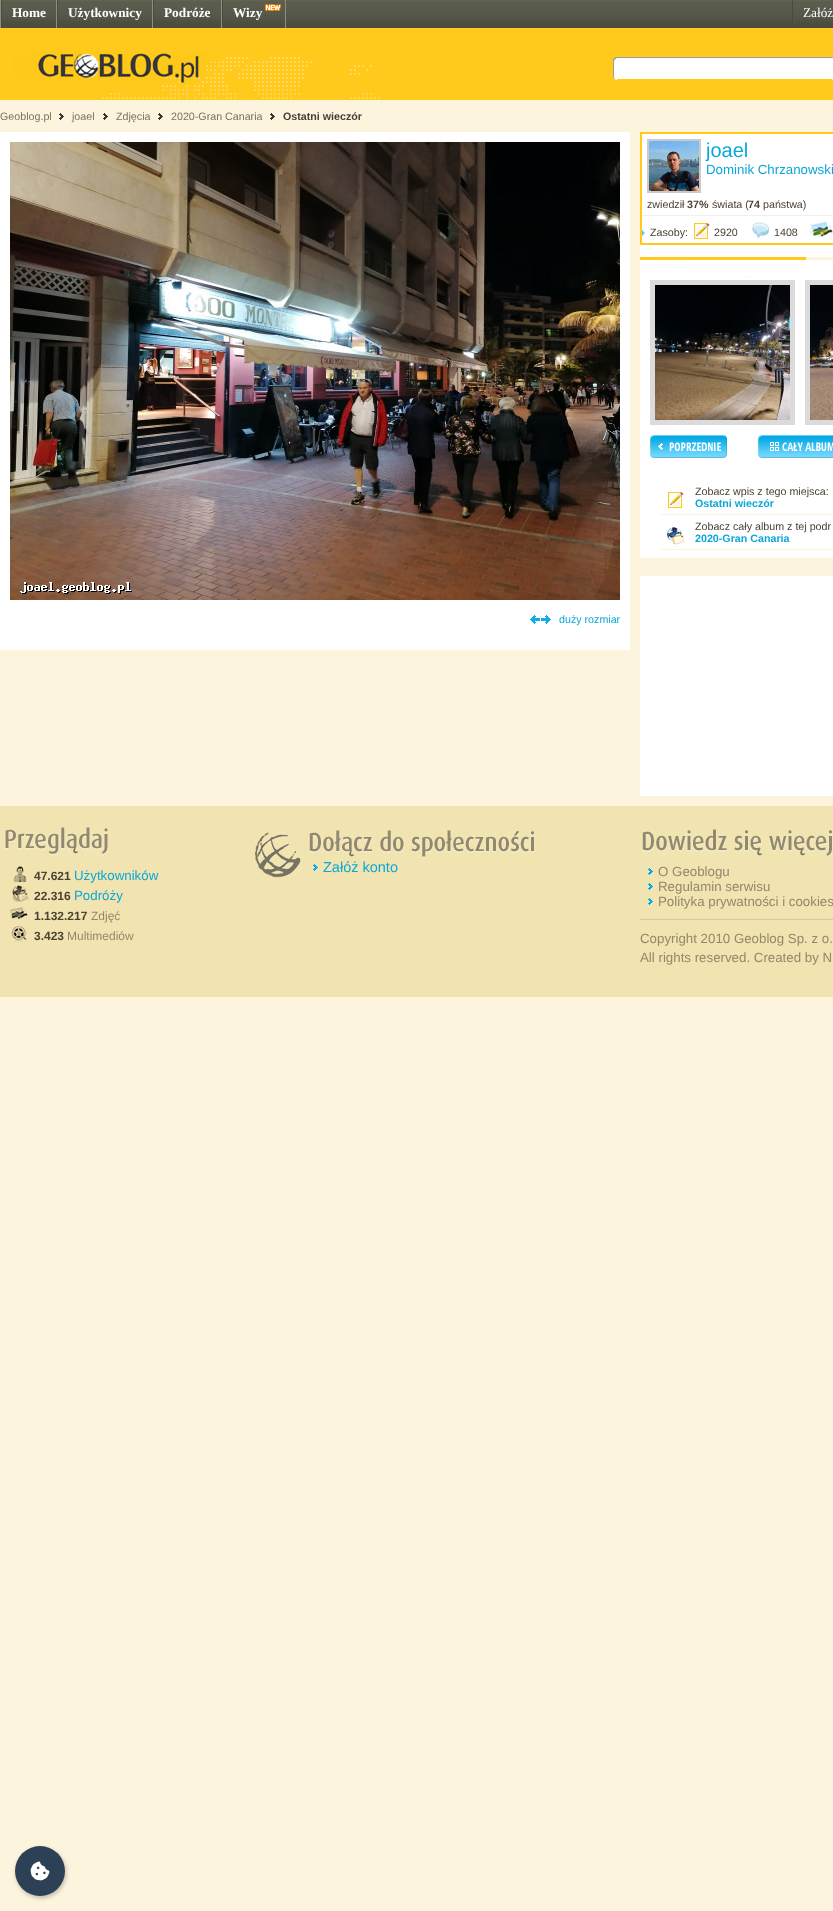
<?xml version="1.0" encoding="UTF-8"?>
<svg xmlns="http://www.w3.org/2000/svg" width="833" height="1911">
    <defs>
        <filter id="blur1" x="-50%" y="-200%" width="200%" height="500%"><feGaussianBlur stdDeviation="2"/></filter>
    </defs>
    <rect width="100%" height="100%" fill="#FCF4DD"/>
    <image x="2" y="0" width="831" height="28" href="img_01.png"/>
    <rect x="0" y="0" width="1" height="28" fill="#8C8D83"/>
    <rect x="56" y="0" width="1" height="28" fill="#8C8D83"/>
    <rect x="1" y="0" width="1" height="28" fill="#494A41"/>
    <text x="12" y="17" font-family="Liberation Serif" font-size="13.3" font-weight="700" fill="#FFFFFF">Home</text>
    <rect x="152" y="0" width="1" height="28" fill="#8C8D83"/>
    <rect x="57" y="0" width="1" height="28" fill="#494A41"/>
    <text x="68" y="17" font-family="Liberation Serif" font-size="13.3" font-weight="700" fill="#FFFFFF">Użytkownicy</text>
    <rect x="221" y="0" width="1" height="28" fill="#8C8D83"/>
    <rect x="153" y="0" width="1" height="28" fill="#494A41"/>
    <text x="164" y="17" font-family="Liberation Serif" font-size="13.3" font-weight="700" fill="#FFFFFF">Podróże</text>
    <rect x="285" y="0" width="1" height="28" fill="#8C8D83"/>
    <rect x="222" y="0" width="1" height="28" fill="#494A41"/>
    <text x="233" y="17" font-family="Liberation Serif" font-size="13.3" font-weight="700" fill="#FFFFFF">Wizy</text>
    <image x="265" y="4" width="16" height="7" href="img_02.png"/>
    <rect x="792" y="0" width="1" height="28" fill="#494A41"/>
    <text x="803" y="17" font-family="Liberation Serif" font-size="13.3" fill="#FFFFFF">Załóż</text>
    <rect x="0" y="28" width="833" height="72" fill="#FFCA1C"/>
    <image x="0" y="52" width="380" height="48" href="img_03.png"/>
    <image x="613" y="56" width="4" height="25" href="img_04.png"/>
    <rect x="617" y="78" width="215" height="1" fill="#FFFFFF"/>
    <image x="617" y="56" width="215" height="22" href="img_05.png"/>
    <image x="832" y="56" width="1" height="25" href="img_06.png"/>
    <text x="0" y="120" font-family="Liberation Sans" font-size="10.7" fill="#76765C">Geoblog.pl</text>
    <image x="59" y="113" width="5" height="7" href="img_07.png"/>
    <text x="72" y="120" font-family="Liberation Sans" font-size="10.7" fill="#76765C">joael</text>
    <image x="103" y="113" width="5" height="7" href="img_07.png"/>
    <text x="116" y="120" font-family="Liberation Sans" font-size="10.7" fill="#76765C">Zdjęcia</text>
    <image x="158" y="113" width="5" height="7" href="img_07.png"/>
    <text x="171" y="120" font-family="Liberation Sans" font-size="10.7" fill="#76765C">2020-Gran Canaria</text>
    <image x="270" y="113" width="5" height="7" href="img_07.png"/>
    <text x="283" y="120" font-family="Liberation Sans" font-size="10.7" font-weight="700" fill="#443F39">Ostatni wieczór</text>
    <rect x="640" y="134" width="193" height="424" fill="#FFFFFF"/>
    <rect x="641" y="133" width="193" height="111" fill="none" stroke="#FFCA1C" stroke-width="2"/>
    <rect x="642" y="215" width="191" height="1" fill="#F0F0F0"/>
    <rect x="648" y="140" width="52" height="52" fill="none" stroke="#CACACA" stroke-width="2"/>
    <image x="649" y="141" width="50" height="50" href="img_08.png"/>
    <text x="706" y="157" font-family="Liberation Sans" font-size="20" fill="#0BA7D8">joael</text>
    <text x="706" y="174" font-family="Liberation Sans" font-size="13.3" fill="#0BA7D8">Dominik Chrzanowski</text>
    <text x="647" y="208" font-family="Liberation Sans" font-size="10.7" fill="#4B4233">zwiedził</text>
    <text x="687" y="208" font-family="Liberation Sans" font-size="10.7" font-weight="700" fill="#4B4233">37%</text>
    <text x="712" y="208" font-family="Liberation Sans" font-size="10.7" fill="#4B4233">świata (</text>
    <text x="748" y="208" font-family="Liberation Sans" font-size="10.7" font-weight="700" fill="#4B4233">74</text>
    <text x="763" y="208" font-family="Liberation Sans" font-size="10.7" fill="#4B4233">państwa)</text>
    <image x="642" y="230" width="3" height="6" href="img_09.png"/>
    <text x="650" y="236" font-family="Liberation Sans" font-size="10.7" fill="#4B4233">Zasoby:</text>
    <image x="694" y="223" width="16" height="16" href="img_10.png"/>
    <text x="714" y="236" font-family="Liberation Sans" font-size="10.7" fill="#4B4233">2920</text>
    <image x="752" y="222" width="17" height="16" href="img_11.png"/>
    <text x="774" y="236" font-family="Liberation Sans" font-size="10.7" fill="#4B4233">1408</text>
    <image x="810" y="221" width="23" height="17" href="img_12.png"/>
    <image x="640" y="257" width="193" height="21" href="img_13.png"/>
    <rect x="652.5" y="282.5" width="140" height="140" fill="none" stroke="#DBDBDB" stroke-width="5"/>
    <image x="655" y="285" width="135" height="135" href="img_14.png"/>
    <rect x="807.5" y="282.5" width="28" height="140" fill="none" stroke="#DBDBDB" stroke-width="5"/>
    <image x="810" y="285" width="23" height="135" href="img_15.png"/>
    <image x="650" y="435" width="77" height="23" href="img_16.png"/>
    <image x="758" y="435" width="75" height="23" href="img_17.png"/>
    <rect x="660" y="514" width="173" height="1" fill="#FAF5DF"/>
    <image x="668" y="492" width="16" height="16" href="img_10.png"/>
    <text x="695" y="495" font-family="Liberation Sans" font-size="10.7" fill="#4B4233">Zobacz wpis z tego miejsca:</text>
    <text x="695" y="507" font-family="Liberation Sans" font-size="10.7" font-weight="700" fill="#0BA7D8">Ostatni wieczór</text>
    <rect x="660" y="549" width="173" height="1" fill="#FAF5DF"/>
    <image x="667" y="527" width="18" height="18" href="img_18.png"/>
    <text x="695" y="530" font-family="Liberation Sans" font-size="10.7" fill="#4B4233">Zobacz cały album z tej podr</text>
    <text x="695" y="542" font-family="Liberation Sans" font-size="10.7" font-weight="700" fill="#0BA7D8">2020-Gran Canaria</text>
    <rect x="640" y="576" width="193" height="220" fill="#FFFFFF"/>
    <rect x="0" y="132" width="630" height="518" fill="#FFFFFF"/>
    <image x="10" y="142" width="610" height="458" href="img_19.png"/>
    <image x="530" y="615" width="21" height="9" href="img_20.png"/>
    <text x="559" y="623" font-family="Liberation Sans" font-size="10.7" fill="#0BA7D8">duży rozmiar</text>
    <rect x="0" y="806" width="833" height="191" fill="#F2E4B1"/>
    <image x="252" y="828" width="52" height="52" href="img_21.png"/>
    <image x="305" y="828" width="234" height="31" href="img_22.png"/>
    <image x="310" y="862" width="9" height="12" href="img_23.png"/>
    <text x="323" y="872" font-family="Liberation Sans" font-size="14.5" fill="#0BA7D8">Załóż konto</text>
    <image x="4" y="826" width="104" height="32" href="img_24.png"/>
    <image x="11" y="866" width="16" height="16" href="img_25.png"/>
    <text x="34" y="880" font-family="Liberation Sans" font-size="12" font-weight="700" fill="#4B4233">47.621</text>
    <text x="74" y="880" font-family="Liberation Sans" font-size="13.3" fill="#0BA7D8">Użytkowników</text>
    <image x="11" y="885" width="18" height="17" href="img_26.png"/>
    <text x="34" y="900" font-family="Liberation Sans" font-size="12" font-weight="700" fill="#4B4233">22.316</text>
    <text x="74" y="900" font-family="Liberation Sans" font-size="13.3" fill="#0BA7D8">Podróży</text>
    <image x="10" y="906" width="19" height="16" href="img_27.png"/>
    <text x="34" y="920" font-family="Liberation Sans" font-size="12" font-weight="700" fill="#4B4233">1.132.217</text>
    <text x="91" y="920" font-family="Liberation Sans" font-size="12" fill="#92886A">Zdjęć</text>
    <image x="11" y="925" width="16" height="17" href="img_28.png"/>
    <text x="34" y="940" font-family="Liberation Sans" font-size="12" font-weight="700" fill="#4B4233">3.423</text>
    <text x="67" y="940" font-family="Liberation Sans" font-size="12" fill="#92886A">Multimediów</text>
    <image x="642" y="828" width="191" height="31" href="img_29.png"/>
    <rect x="640" y="919" width="193" height="1" fill="#D7C99A"/>
    <image x="645" y="866" width="9" height="12" href="img_23.png"/>
    <text x="658" y="876" font-family="Liberation Sans" font-size="13.3" fill="#92886A">O Geoblogu</text>
    <image x="645" y="881" width="9" height="12" href="img_23.png"/>
    <text x="658" y="891" font-family="Liberation Sans" font-size="13.3" fill="#92886A">Regulamin serwisu</text>
    <image x="645" y="896" width="9" height="12" href="img_23.png"/>
    <text x="658" y="906" font-family="Liberation Sans" font-size="13.3" fill="#92886A">Polityka prywatności i cookies</text>
    <text font-family="Liberation Sans" font-size="13.3" fill="#92886A">
        <tspan x="640" y="943">Copyright 2010 Geoblog Sp. z o.</tspan>
        <tspan x="640" y="962">All rights reserved. Created by N</tspan>
    </text>
    <rect x="16" y="1848" width="50" height="50" rx="25" fill="#000000" fill-opacity="0.25" filter="url(#blur1)"/>
    <circle cx="40" cy="1871" r="25" fill="#2D4156"/>
    <image x="30" y="1861" width="20" height="20" href="img_30.png"/>
</svg>
